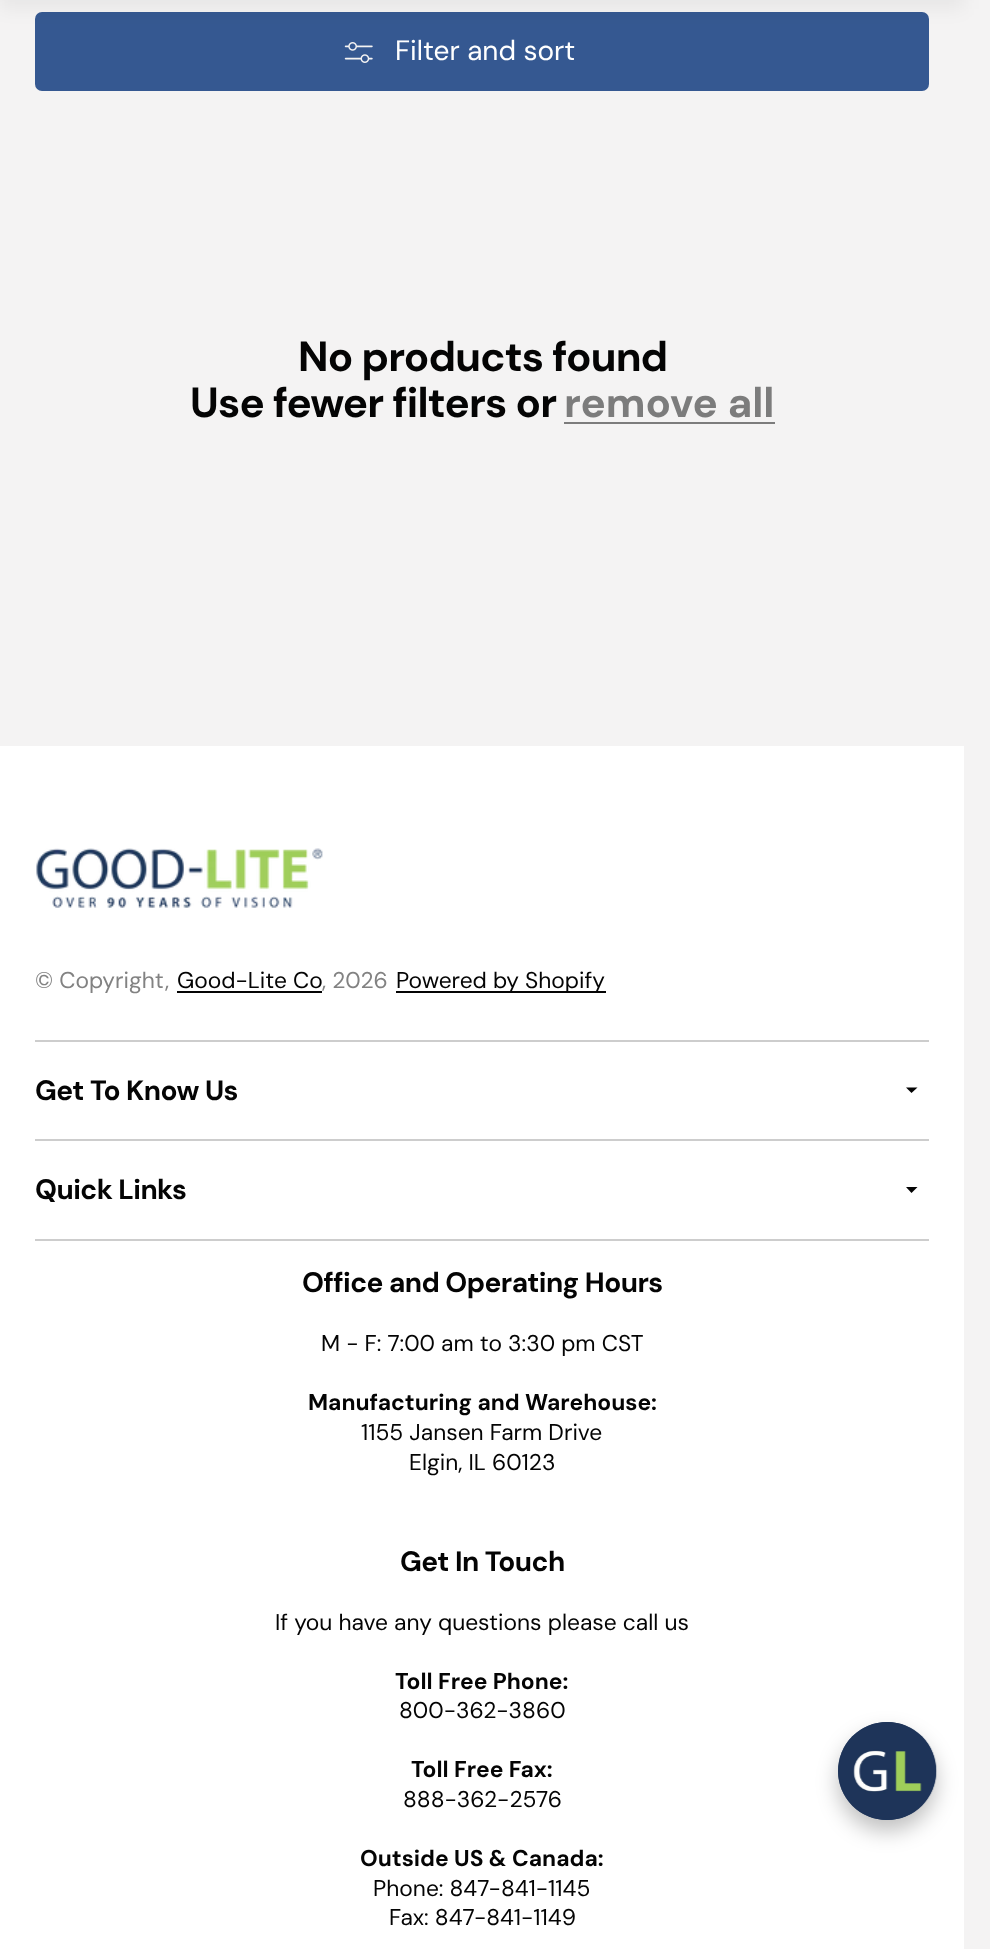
<?xml version="1.0" encoding="UTF-8"?>
<svg xmlns="http://www.w3.org/2000/svg" width="990" height="1949">
    <defs>
        <filter id="blur1" x="-50%" y="-200%" width="200%" height="500%"><feGaussianBlur stdDeviation="9"/></filter>
        <filter id="blur2" x="-50%" y="-200%" width="200%" height="500%"><feGaussianBlur stdDeviation="10.5"/></filter>
    </defs>
    <rect width="100%" height="100%" fill="#F4F3F3"/>
    <rect x="35" y="12" width="894" height="79" rx="7" fill="#355891"/>
    <rect x="0" y="-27" width="964" height="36" fill="#010101" fill-opacity="0.05" filter="url(#blur1)"/>
    <image x="344" y="42" width="29" height="21" href="img_01.png"/>
    <text x="395" y="60" font-family="DM Sans" font-size="28" fill="#FFFFFF">Filter and sort</text>
    <text x="298" y="371" font-family="DM Sans" font-size="42" font-weight="700" letter-spacing="-0.8" fill="#040404">No products found</text>
    <text x="190" y="417" font-family="DM Sans" font-size="42" font-weight="700" letter-spacing="-0.8" fill="#040404">Use fewer filters or</text>
    <text x="564" y="417" font-family="DM Sans" font-size="42" font-weight="700" fill="#7C7C7C">remove all</text>
    <rect x="564" y="422" width="211" height="2" fill="#7C7C7C"/>
    <rect x="0" y="746" width="964" height="1203" fill="#FFFFFF"/>
    <image x="36" y="848" width="287" height="60" href="img_02.png"/>
    <text x="35" y="988" font-family="'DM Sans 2'" font-size="22.75" fill="#828282">© Copyright,</text>
    <text x="177" y="988" font-family="'DM Sans 2'" font-size="22.75" fill="#040404">Good-Lite Co</text>
    <text x="322" y="988" font-family="'DM Sans 2'" font-size="22.75" fill="#828282">, 2026</text>
    <rect x="177" y="991" width="145" height="2" fill="#040404"/>
    <rect x="396" y="991" width="210" height="2" fill="#040404"/>
    <text x="396" y="988" font-family="'DM Sans 2'" font-size="22.75" fill="#040404">Powered by Shopify</text>
    <rect x="35" y="1040" width="894" height="2" fill="#CDCDCD"/>
    <rect x="35" y="1139" width="894" height="2" fill="#CDCDCD"/>
    <text x="35" y="1100" font-family="'DM Sans 2'" font-size="28" font-weight="700" letter-spacing="-0.55" fill="#040404">Get To Know Us</text>
    <path d="M 911.5 1093 L 906 1087.5 H 917.5 Z" fill="#040404"/>
    <rect x="35" y="1239" width="894" height="2" fill="#CDCDCD"/>
    <text x="35" y="1199" font-family="'DM Sans 2'" font-size="28" font-weight="700" letter-spacing="-0.55" fill="#040404">Quick Links</text>
    <path d="M 911.5 1193 L 906 1187 H 917.5 Z" fill="#040404"/>
    <text x="302" y="1292" font-family="'DM Sans 2'" font-size="28" font-weight="700" letter-spacing="-0.55" fill="#040404">Office and Operating Hours</text>
    <text x="321" y="1351" font-family="'DM Sans 2'" font-size="22.75" fill="#040404">M - F: 7:00 am to 3:30 pm CST</text>
    <text x="308" y="1410" font-family="'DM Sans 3'" font-size="22.75" font-weight="700" fill="#040404">Manufacturing and Warehouse:</text>
    <text x="361" y="1440" font-family="'DM Sans 2'" font-size="22.75" fill="#040404">1155 Jansen Farm Drive</text>
    <text x="409" y="1470" font-family="'DM Sans 2'" font-size="22.75" fill="#040404">Elgin, IL 60123</text>
    <text x="400" y="1571" font-family="'DM Sans 2'" font-size="28" font-weight="700" letter-spacing="-0.55" fill="#040404">Get In Touch</text>
    <text x="275" y="1630" font-family="'DM Sans 2'" font-size="22.75" fill="#040404">If you have any questions please call us</text>
    <text x="395" y="1689" font-family="'DM Sans 3'" font-size="22.75" font-weight="700" fill="#040404">Toll Free Phone:</text>
    <text x="399" y="1718" font-family="'DM Sans 2'" font-size="22.75" fill="#040404">800-362-3860</text>
    <text x="411" y="1777" font-family="'DM Sans 3'" font-size="22.75" font-weight="700" fill="#040404">Toll Free Fax:</text>
    <text x="403" y="1807" font-family="'DM Sans 2'" font-size="22.75" fill="#040404">888-362-2576</text>
    <text x="360" y="1866" font-family="'DM Sans 3'" font-size="22.75" font-weight="700" fill="#040404">Outside US &amp; Canada:</text>
    <text x="373" y="1896" font-family="'DM Sans 2'" font-size="22.75" fill="#040404">Phone: 847-841-1145</text>
    <text x="389" y="1925" font-family="'DM Sans 2'" font-size="22.75" fill="#040404">Fax: 847-841-1149</text>
    <rect x="838" y="1733" width="98" height="98" rx="49" fill="#000000" fill-opacity="0.25" filter="url(#blur2)"/>
    <circle cx="887" cy="1771" r="49" fill="#1E355A"/>
    <image x="838" y="1722" width="99" height="98" href="img_03.png"/>
</svg>
